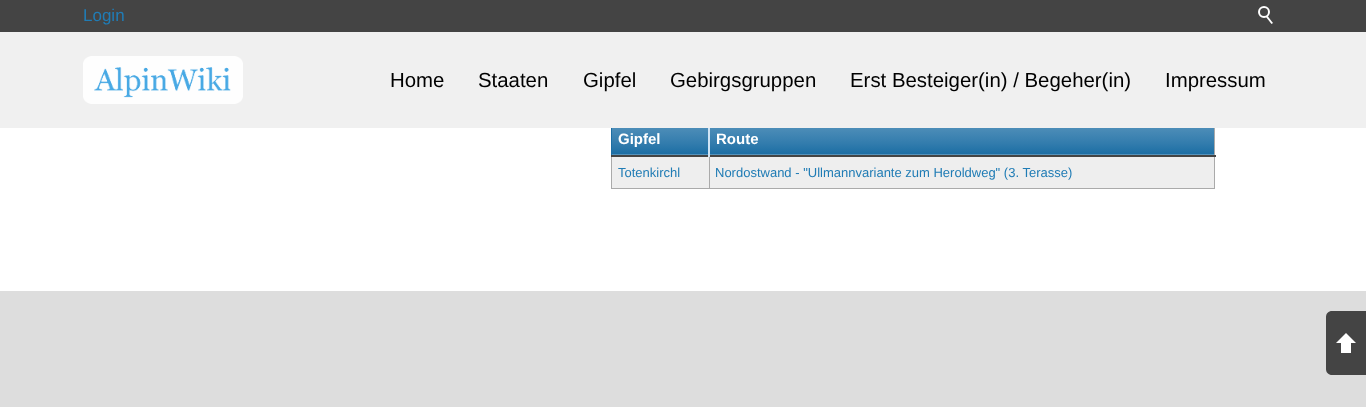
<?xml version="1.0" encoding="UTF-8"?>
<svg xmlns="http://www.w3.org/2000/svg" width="1366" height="407">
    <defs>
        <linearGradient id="g1" gradientUnits="userSpaceOnUse" x1="914" y1="123" x2="914" y2="154"><stop offset="0" stop-color="#5592BB"/><stop offset="0.66" stop-color="#327CAD"/><stop offset="1" stop-color="#1C6EA4"/></linearGradient>
        <linearGradient id="g2" gradientUnits="userSpaceOnUse" x1="914" y1="154" x2="914" y2="185"><stop offset="0" stop-color="#5592BB"/><stop offset="0.66" stop-color="#327CAD"/><stop offset="1" stop-color="#1C6EA4"/></linearGradient>
    </defs>
    <rect width="100%" height="100%" fill="#DDDDDD"/>
    <rect x="0" y="128" width="1366" height="163" fill="#FFFFFF"/>
    <rect x="611" y="122" width="1" height="33" fill="#1C6EA4"/>
    <rect x="612" y="128" width="602" height="26" fill="url(#g1)"/>
    <rect x="612" y="154" width="603" height="1" fill="url(#g2)"/>
    <rect x="1214" y="122" width="1" height="67" fill="#AAAAAA"/>
    <rect x="709" y="188" width="506" height="1" fill="#AAAAAA"/>
    <rect x="612" y="157" width="602" height="31" fill="#EEEEEE"/>
    <rect x="709" y="155" width="1" height="34" fill="#AAAAAA"/>
    <rect x="611" y="188" width="99" height="1" fill="#AAAAAA"/>
    <rect x="611" y="155" width="1" height="34" fill="#AAAAAA"/>
    <rect x="611" y="155" width="605" height="2" fill="#444444"/>
    <rect x="708" y="122" width="2" height="35" fill="#D0E4F5"/>
    <rect x="0" y="32" width="1366" height="96" fill="#F0F0F0"/>
    <rect x="0" y="0" width="1366" height="32" fill="#444444"/>
    <text x="83" y="21" font-family="Liberation Sans" font-size="17" fill="#207CB5">Login</text>
    <circle cx="1264" cy="12" r="5" fill="none" stroke="#FFFFFF" stroke-width="2"/>
    <path d="M 1267.5 16 L 1273 23 L 1271.5 24 L 1266 17 Z" fill="#FFFFFF"/>
    <image x="83" y="56" width="160" height="48" href="img_01.png"/>
    <text x="390" y="87" font-family="Liberation Sans" font-size="20.4" fill="#000000">Home</text>
    <text x="478" y="87" font-family="Liberation Sans" font-size="20.4" fill="#000000">Staaten</text>
    <text x="583" y="87" font-family="Liberation Sans" font-size="20.4" fill="#000000">Gipfel</text>
    <text x="670" y="87" font-family="Liberation Sans" font-size="20.4" fill="#000000">Gebirgsgruppen</text>
    <text x="850" y="87" font-family="Liberation Sans" font-size="20.4" fill="#000000">Erst Besteiger(in) / Begeher(in)</text>
    <text x="1165" y="87" font-family="Liberation Sans" font-size="20.4" fill="#000000">Impressum</text>
    <text x="618" y="144" font-family="Liberation Sans" font-size="15" font-weight="700" fill="#FFFFFF">Gipfel</text>
    <text x="716" y="144" font-family="Liberation Sans" font-size="15" font-weight="700" fill="#FFFFFF">Route</text>
    <text x="618" y="177" font-family="Liberation Sans" font-size="13" fill="#207CB5">Totenkirchl</text>
    <text x="715" y="177" font-family="Liberation Sans" font-size="13" fill="#207CB5">Nordostwand - "Ullmannvariante zum Heroldweg" (3. Terasse)</text>
    <path d="M 1332 311 H 1366 V 375 H 1332 C 1328.5 375 1326 372.5 1326 369 V 317 C 1326 313.5 1328.5 311 1332 311 Z" fill="#444444"/>
    <path d="M 1356 343 H 1336 L 1346 333 Z" fill="#FFFFFF"/>
    <rect x="1341" y="343" width="10" height="10" fill="#FFFFFF"/>
</svg>
